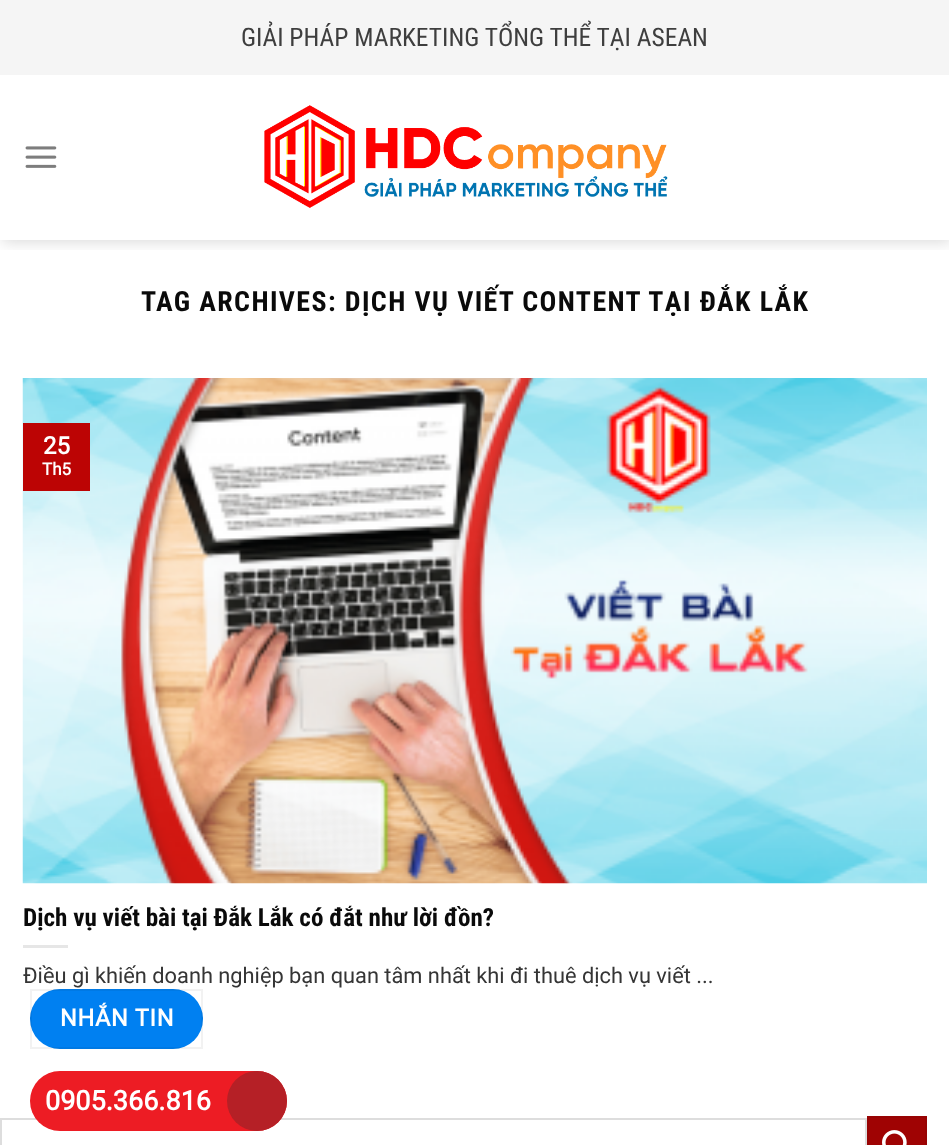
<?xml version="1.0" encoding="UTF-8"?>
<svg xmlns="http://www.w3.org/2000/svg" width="949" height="1145">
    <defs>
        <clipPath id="clip1"><rect x="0" y="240" width="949" height="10"/></clipPath>
        <filter id="blur1" x="-50%" y="-200%" width="200%" height="500%"><feGaussianBlur stdDeviation="7.5"/></filter>
    </defs>
    <rect width="100%" height="100%" fill="#FFFFFF"/>
    <g clip-path="url(#clip1)">
        <rect x="2" y="2" width="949" height="240" fill="#000000" fill-opacity="0.15" filter="url(#blur1)"/>
    </g>
    <rect x="0" y="0" width="949" height="75" fill="#F5F5F5"/>
    <text x="241" y="46" font-family="Roboto Condensed" font-size="25.5" fill="#3E3E3E">GIẢI PHÁP MARKETING TỔNG THỂ TẠI ASEAN</text>
    <image x="25" y="146" width="32" height="22" href="img_01.png"/>
    <image x="264" y="105" width="404" height="103" href="img_02.png"/>
    <text x="141" y="311" font-family="Roboto Condensed" font-size="27.9" font-weight="700" letter-spacing="1.4" fill="#0A0A0A">TAG ARCHIVES: DỊCH VỤ VIẾT CONTENT TẠI ĐẮK LẮK</text>
    <image x="22" y="378" width="905" height="506" href="img_03.png"/>
    <rect x="23" y="423" width="67" height="68" fill="#BC0404"/>
    <text x="43" y="454" font-family="Roboto" font-size="24" font-weight="700" fill="#FFFFFF">25</text>
    <text x="42" y="475" font-family="Roboto" font-size="17" font-weight="700" fill="#FFFFFF">Th5</text>
    <text x="23" y="926" font-family="Roboto Condensed" font-size="25.1" font-weight="700" fill="#0A0A0A">Dịch vụ viết bài tại Đắk Lắk có đắt như lời đồn?</text>
    <rect x="23" y="945" width="45" height="3" fill="#E6E6E6"/>
    <text x="23" y="983" font-family="Roboto" font-size="21.8" fill="#353535">Điều gì khiến doanh nghiệp bạn quan tâm nhất khi đi thuê dịch vụ viết ...</text>
    <rect x="1" y="1119" width="865" height="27" fill="none" stroke="#DDDDDD" stroke-width="2"/>
    <rect x="868" y="1117" width="58" height="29" fill="#9F0303" stroke="#970303" stroke-width="2"/>
    <image x="882" y="1130" width="25" height="15" href="img_04.png"/>
    <rect x="30" y="989" width="173" height="60" rx="30" fill="#0080F1"/>
    <rect x="31" y="990" width="171" height="58" fill="none" stroke="#000000" stroke-opacity="0.05" stroke-width="2"/>
    <text x="60" y="1026" font-family="Roboto" font-size="23.5" font-weight="700" letter-spacing="0.75" fill="#FFFFFF">NHẮN TIN</text>
    <rect x="30" y="1071" width="257" height="60" rx="30" fill="#ED1C24"/>
    <text x="45" y="1110" font-family="Roboto" font-size="27" font-weight="700" fill="#FFFFFF">0905.366.816</text>
    <circle cx="257" cy="1101" r="30" fill="#B52026"/>
</svg>
